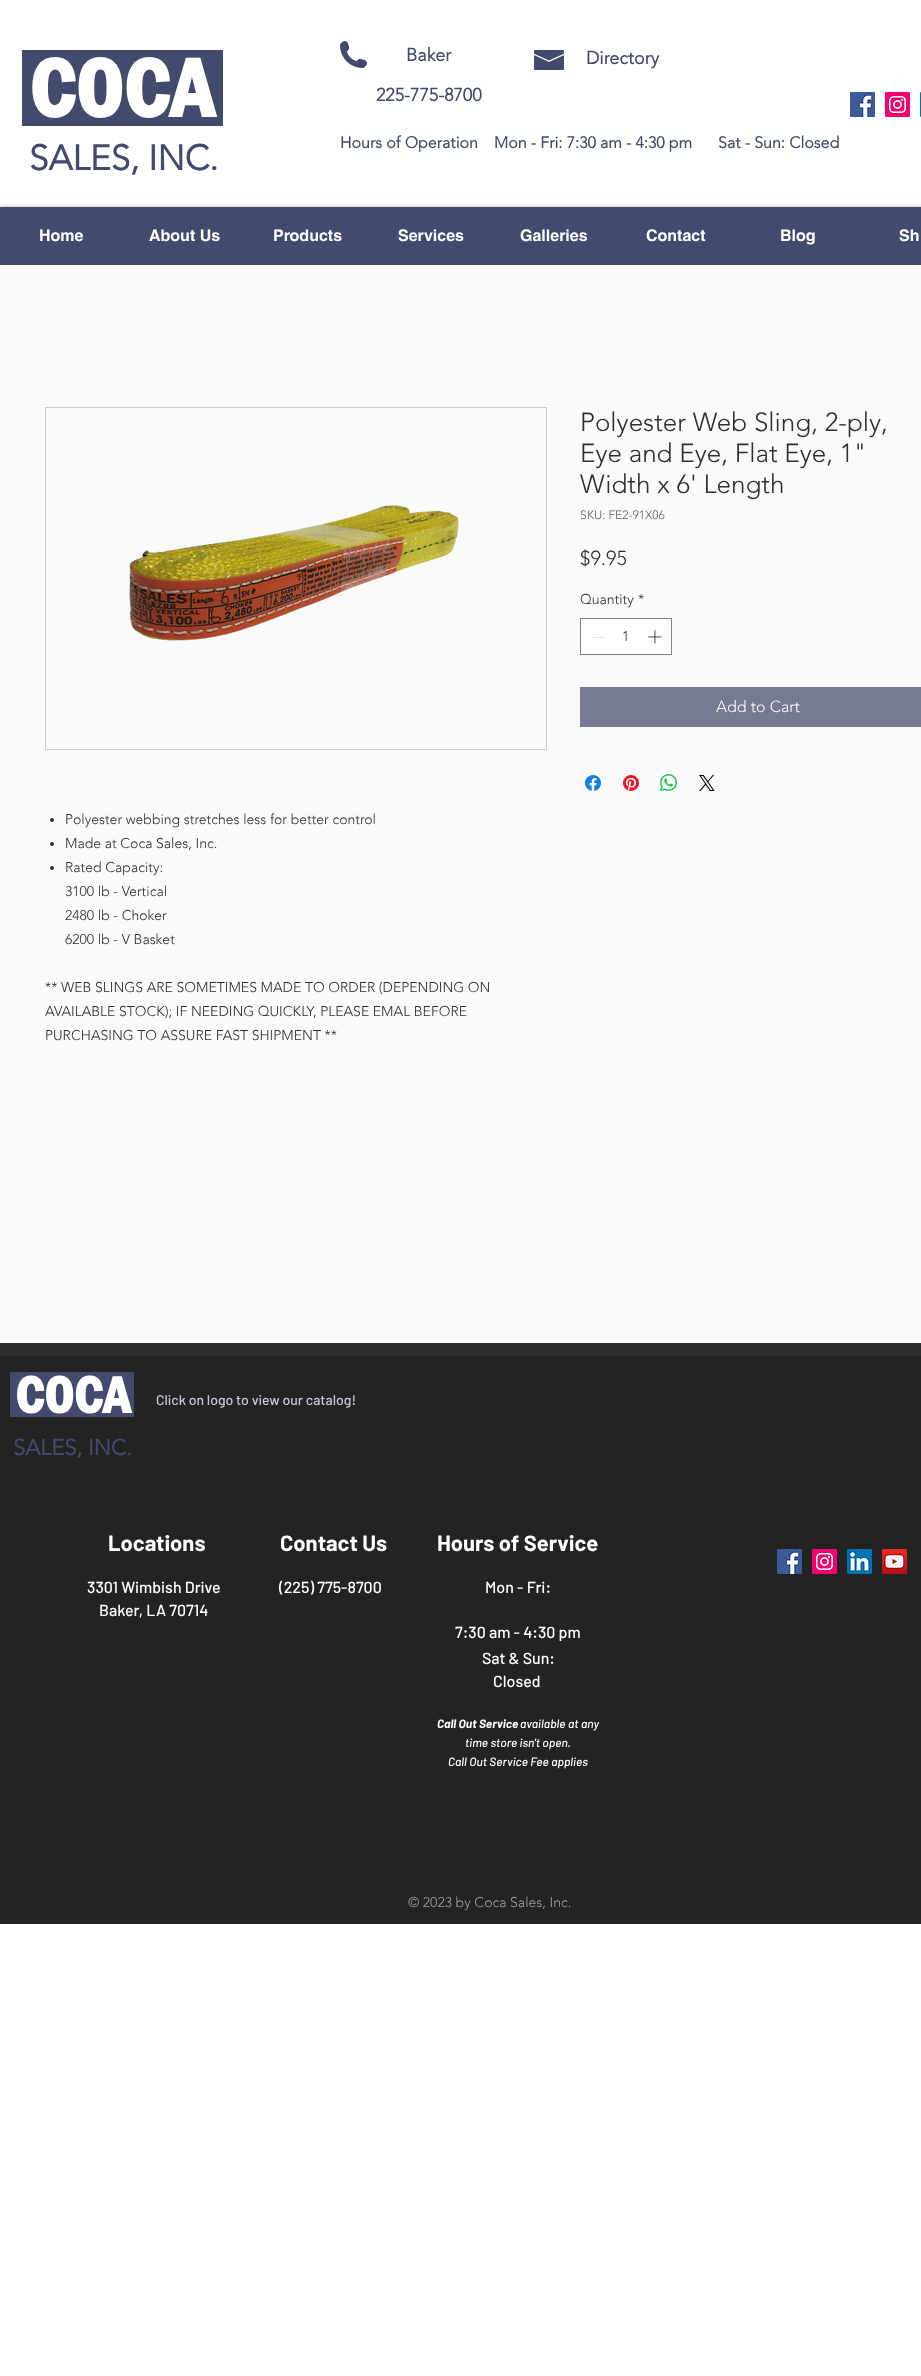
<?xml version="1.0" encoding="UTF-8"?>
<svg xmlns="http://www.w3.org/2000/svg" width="921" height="2376">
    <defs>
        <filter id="blur1" x="-50%" y="-200%" width="200%" height="500%"><feGaussianBlur stdDeviation="2"/></filter>
    </defs>
    <rect width="100%" height="100%" fill="#FFFFFF"/>
    <rect x="22" y="50" width="201" height="76" fill="#424A6E"/>
    <text x="29" y="117" font-family="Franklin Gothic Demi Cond" font-size="85" font-weight="700" fill="#FFFFFF">COCA</text>
    <text x="29" y="170" font-family="'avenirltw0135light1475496'" font-size="35" font-weight="700" fill="#424A6E">SALES, INC.</text>
    <image x="340" y="41" width="27" height="27" href="img_01.png"/>
    <text x="406" y="61" font-family="'avenirltw0135light1475496'" font-size="18" font-weight="700" fill="#424A6E">Baker</text>
    <image x="534" y="50" width="30" height="20" href="img_02.png"/>
    <text x="586" y="64" font-family="'avenirltw0135light1475496'" font-size="18" font-weight="700" fill="#424A6E">Directory</text>
    <text x="376" y="101" font-family="'avenirltw0135light1475496'" font-size="18" font-weight="700" fill="#424A6E">225-775-8700</text>
    <image x="850" y="92" width="25" height="25" href="img_03.png"/>
    <image x="885" y="92" width="25" height="25" href="img_04.png"/>
    <image x="920" y="92" width="1" height="25" href="img_05.png"/>
    <text x="340" y="148" font-family="'avenirltw0135light1475496'" font-size="16" font-weight="700" fill="#424A6E">Hours of Operation</text>
    <text x="494" y="148" font-family="'avenirltw0135light1475496'" font-size="16" font-weight="700" fill="#424A6E">Mon - Fri: 7:30 am - 4:30 pm</text>
    <text x="718" y="148" font-family="'avenirltw0135light1475496'" font-size="16" font-weight="700" fill="#424A6E">Sat - Sun: Closed</text>
    <rect x="0" y="208" width="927" height="58" fill="#000000" fill-opacity="0.6" filter="url(#blur1)"/>
    <rect x="0" y="207" width="921" height="58" fill="#424A6E"/>
    <text x="39" y="241" font-family="helvetica" font-size="16" font-weight="700" fill="#FFFFFF">Home</text>
    <text x="149" y="241" font-family="helvetica" font-size="16" font-weight="700" fill="#FFFFFF">About Us</text>
    <text x="273" y="241" font-family="helvetica" font-size="16" font-weight="700" fill="#FFFFFF">Products</text>
    <text x="398" y="241" font-family="helvetica" font-size="16" font-weight="700" fill="#FFFFFF">Services</text>
    <text x="520" y="241" font-family="helvetica" font-size="16" font-weight="700" fill="#FFFFFF">Galleries</text>
    <text x="646" y="241" font-family="helvetica" font-size="16" font-weight="700" fill="#FFFFFF">Contact</text>
    <text x="780" y="241" font-family="helvetica" font-size="16" font-weight="700" fill="#FFFFFF">Blog</text>
    <text x="899" y="241" font-family="helvetica" font-size="16" font-weight="700" fill="#FFFFFF">Sh</text>
    <rect x="0" y="265" width="921" height="1078" fill="#FAFAFA"/>
    <text font-family="'avenirltw0135light1475496'" font-size="26" font-weight="300" fill="#2F2E2E">
        <tspan x="580" y="431">Polyester Web Sling, 2-ply,</tspan>
        <tspan x="580" y="462">Eye and Eye, Flat Eye, 1"</tspan>
        <tspan x="580" y="493">Width x 6' Length</tspan>
    </text>
    <text x="580" y="519" font-family="'avenirltw0135light1475496'" font-size="12" font-weight="300" fill="#605E5E">SKU: FE2-91X06</text>
    <text x="580" y="565" font-family="'avenirltw0135light1475496'" font-size="20" font-weight="300" fill="#2F2E2E">$9.95</text>
    <text x="580" y="604" font-family="'avenirltw0135light1475496'" font-size="14" font-weight="300" fill="#2F2E2E">Quantity</text>
    <text x="638" y="604" font-family="'avenirltw0135light1475496'" font-size="14" font-weight="300" fill="#2F2E2E">*</text>
    <rect x="580.5" y="618.5" width="91" height="36" fill="#FFFFFF" stroke="#828282"/>
    <rect x="592" y="637" width="13" height="1" fill="#E3E3E3"/>
    <text x="622" y="641" font-family="'avenirltw0135light1475496'" font-size="14" font-weight="300" fill="#2F2E2E">1</text>
    <image x="648" y="630" width="14" height="14" href="img_06.png"/>
    <rect x="580" y="687" width="341" height="40" fill="#757A92"/>
    <text x="716" y="712" font-family="'avenirltw0135light1475496'" font-size="16" font-weight="300" fill="#FFFFFF">Add to Cart</text>
    <image x="585" y="775" width="16" height="16" href="img_07.png"/>
    <image x="623" y="775" width="16" height="16" href="img_08.png"/>
    <image x="660" y="774" width="17" height="17" href="img_09.png"/>
    <image x="699" y="775" width="16" height="16" href="img_10.png"/>
    <rect x="45.5" y="407.5" width="501" height="342" fill="none" stroke="#CCCCCC"/>
    <image x="129" y="505" width="330" height="136" href="img_11.png"/>
    <circle cx="52" cy="820" r="2" fill="#2F2E2E"/>
    <text x="65" y="824" font-family="'avenirltw0135light1475496'" font-size="14" font-weight="300" fill="#2F2E2E">Polyester webbing stretches less for better control</text>
    <circle cx="52" cy="844" r="2" fill="#2F2E2E"/>
    <text x="65" y="848" font-family="'avenirltw0135light1475496'" font-size="14" font-weight="300" fill="#2F2E2E">Made at Coca Sales, Inc.</text>
    <circle cx="52" cy="868" r="2" fill="#2F2E2E"/>
    <text font-family="'avenirltw0135light1475496'" font-size="14" font-weight="300" fill="#2F2E2E">
        <tspan x="65" y="872">Rated Capacity:</tspan>
        <tspan x="65" y="896">3100 lb - Vertical</tspan>
        <tspan x="65" y="920">2480 lb - Choker</tspan>
        <tspan x="65" y="944">6200 lb - V Basket</tspan>
    </text>
    <text font-family="'avenirltw0135light1475496'" font-size="14" font-weight="300" fill="#2F2E2E">
        <tspan x="45" y="992">** WEB SLINGS ARE SOMETIMES MADE TO ORDER (DEPENDING ON</tspan>
        <tspan x="45" y="1016">AVAILABLE STOCK); IF NEEDING QUICKLY, PLEASE EMAL BEFORE</tspan>
        <tspan x="45" y="1040">PURCHASING TO ASSURE FAST SHIPMENT **</tspan>
    </text>
    <rect x="0" y="1343" width="921" height="13" fill="#2F2E2E"/>
    <rect x="0" y="1356" width="921" height="568" fill="#242323"/>
    <rect x="10" y="1372" width="124" height="45" fill="#424A6E"/>
    <text x="15" y="1413" font-family="Franklin Gothic Demi Cond" font-size="53" font-weight="700" fill="#FFFFFF">COCA</text>
    <text x="13" y="1455" font-family="'avenirltw0135light1475496'" font-size="22" font-weight="700" fill="#424A6E">SALES, INC.</text>
    <text x="156" y="1405" font-family="Barlow" font-size="14" font-weight="500" fill="#C5C9DB">Click on logo to view our catalog!</text>
    <text x="108" y="1551" font-family="Barlow" font-size="22" font-weight="700" fill="#FFFFFF">Locations</text>
    <text x="280" y="1551" font-family="Barlow" font-size="22" font-weight="700" fill="#FFFFFF">Contact Us</text>
    <text x="437" y="1551" font-family="Barlow" font-size="22" font-weight="700" fill="#FFFFFF">Hours of Service</text>
    <text x="87" y="1593" font-family="Barlow" font-size="16" font-weight="500" fill="#FFFFFF">3301 Wimbish Drive</text>
    <text x="99" y="1616" font-family="Barlow" font-size="16" font-weight="500" fill="#FFFFFF">Baker, LA 70714</text>
    <text x="279" y="1593" font-family="Barlow" font-size="16" font-weight="500" fill="#FFFFFF">(225) 775-8700</text>
    <text x="485" y="1593" font-family="Barlow" font-size="16" font-weight="500" fill="#FFFFFF">Mon - Fri:</text>
    <text x="455" y="1638" font-family="Barlow" font-size="16" font-weight="500" fill="#FFFFFF">7:30 am - 4:30 pm</text>
    <text x="482" y="1664" font-family="Barlow" font-size="16" font-weight="500" fill="#FFFFFF">Sat &amp; Sun:</text>
    <text x="493" y="1687" font-family="Barlow" font-size="16" font-weight="500" fill="#FFFFFF">Closed</text>
    <text x="437" y="1728" font-family="Barlow" font-size="12" font-weight="700" font-style="italic" fill="#FFFFFF">Call Out Service</text>
    <text x="520" y="1728" font-family="Barlow" font-size="12" font-weight="500" font-style="italic" fill="#FFFFFF">available at any</text>
    <text x="465" y="1747" font-family="Barlow" font-size="12" font-weight="500" font-style="italic" fill="#FFFFFF">time store isn't open.</text>
    <text x="448" y="1766" font-family="Barlow" font-size="12" font-weight="500" font-style="italic" fill="#FFFFFF">Call Out Service Fee applies</text>
    <image x="777" y="1549" width="25" height="25" href="img_12.png"/>
    <image x="812" y="1549" width="25" height="25" href="img_13.png"/>
    <image x="847" y="1549" width="25" height="25" href="img_14.png"/>
    <image x="882" y="1549" width="25" height="25" href="img_15.png"/>
    <text x="408" y="1907" font-family="'avenirltw0135light1475496'" font-size="14" font-weight="300" fill="#A0A09F">© 2023 by Coca Sales, Inc.</text>
</svg>
